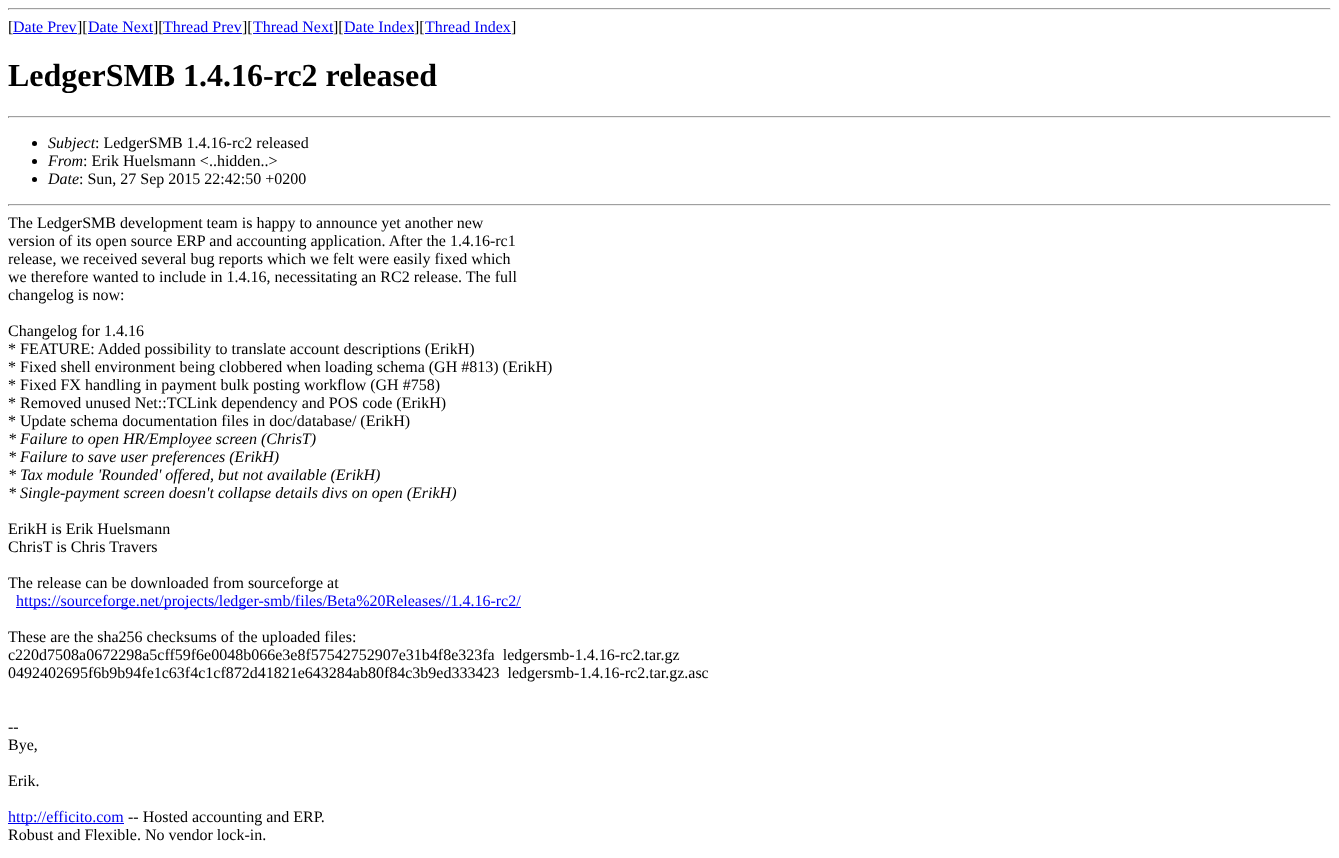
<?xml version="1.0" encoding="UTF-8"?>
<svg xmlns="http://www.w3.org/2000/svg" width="1339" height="858">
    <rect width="100%" height="100%" fill="#FFFFFF"/>
    <rect x="8" y="8" width="1323" height="1" fill="#9F9F9F"/>
    <rect x="1330" y="8" width="1" height="2" fill="#EEEEEE"/>
    <rect x="8" y="9" width="1323" height="1" fill="#EEEEEE"/>
    <rect x="8" y="8" width="1" height="2" fill="#9F9F9F"/>
    <text x="8" y="32" font-family="Liberation Serif" font-size="16" fill="#000000">[</text>
    <text x="13" y="32" font-family="Liberation Serif" font-size="16" fill="#0000EE">Date Prev</text>
    <rect x="13" y="33" width="64" height="1" fill="#0000EE"/>
    <text x="77" y="32" font-family="Liberation Serif" font-size="16" fill="#000000">][</text>
    <text x="88" y="32" font-family="Liberation Serif" font-size="16" fill="#0000EE">Date Next</text>
    <rect x="88" y="33" width="65" height="1" fill="#0000EE"/>
    <text x="153" y="32" font-family="Liberation Serif" font-size="16" fill="#000000">][</text>
    <text x="163" y="32" font-family="Liberation Serif" font-size="16" fill="#0000EE">Thread Prev</text>
    <rect x="163" y="33" width="79" height="1" fill="#0000EE"/>
    <text x="242" y="32" font-family="Liberation Serif" font-size="16" fill="#000000">][</text>
    <text x="253" y="32" font-family="Liberation Serif" font-size="16" fill="#0000EE">Thread Next</text>
    <rect x="253" y="33" width="80" height="1" fill="#0000EE"/>
    <text x="333" y="32" font-family="Liberation Serif" font-size="16" fill="#000000">][</text>
    <text x="344" y="32" font-family="Liberation Serif" font-size="16" fill="#0000EE">Date Index</text>
    <rect x="344" y="33" width="70" height="1" fill="#0000EE"/>
    <text x="414" y="32" font-family="Liberation Serif" font-size="16" fill="#000000">][</text>
    <text x="425" y="32" font-family="Liberation Serif" font-size="16" fill="#0000EE">Thread Index</text>
    <rect x="425" y="33" width="86" height="1" fill="#0000EE"/>
    <text x="511" y="32" font-family="Liberation Serif" font-size="16" fill="#000000">]</text>
    <text x="8" y="86" font-family="Liberation Serif" font-size="32" font-weight="700" fill="#000000">LedgerSMB 1.4.16-rc2 released</text>
    <rect x="8" y="116" width="1323" height="1" fill="#9F9F9F"/>
    <rect x="1330" y="116" width="1" height="2" fill="#EEEEEE"/>
    <rect x="8" y="117" width="1323" height="1" fill="#EEEEEE"/>
    <rect x="8" y="116" width="1" height="2" fill="#9F9F9F"/>
    <circle cx="34.5" cy="143.5" r="2.5" fill="#000000"/>
    <text x="48" y="148" font-family="Liberation Serif" font-size="16" font-style="italic" fill="#000000">Subject</text>
    <text x="95" y="148" font-family="Liberation Serif" font-size="16" fill="#000000">: LedgerSMB 1.4.16-rc2 released</text>
    <circle cx="34.5" cy="161.5" r="2.5" fill="#000000"/>
    <text x="48" y="166" font-family="Liberation Serif" font-size="16" font-style="italic" fill="#000000">From</text>
    <text x="83" y="166" font-family="Liberation Serif" font-size="16" fill="#000000">: Erik Huelsmann &lt;..hidden..&gt;</text>
    <circle cx="34.5" cy="179.5" r="2.5" fill="#000000"/>
    <text x="48" y="184" font-family="Liberation Serif" font-size="16" font-style="italic" fill="#000000">Date</text>
    <text x="79" y="184" font-family="Liberation Serif" font-size="16" fill="#000000">: Sun, 27 Sep 2015 22:42:50 +0200</text>
    <rect x="8" y="204" width="1323" height="1" fill="#9F9F9F"/>
    <rect x="1330" y="204" width="1" height="2" fill="#EEEEEE"/>
    <rect x="8" y="205" width="1323" height="1" fill="#EEEEEE"/>
    <rect x="8" y="204" width="1" height="2" fill="#9F9F9F"/>
    <text font-family="Liberation Serif" font-size="16" fill="#000000">
        <tspan x="8" y="228">The LedgerSMB development team is happy to announce yet another new</tspan>
        <tspan x="8" y="246">version of its open source ERP and accounting application. After the 1.4.16-rc1</tspan>
        <tspan x="8" y="264">release, we received several bug reports which we felt were easily fixed which</tspan>
        <tspan x="8" y="282">we therefore wanted to include in 1.4.16, necessitating an RC2 release. The full</tspan>
        <tspan x="8" y="300">changelog is now:</tspan>
    </text>
    <text font-family="Liberation Serif" font-size="16" fill="#000000">
        <tspan x="8" y="336">Changelog for 1.4.16</tspan>
        <tspan x="8" y="354">* FEATURE: Added possibility to translate account descriptions (ErikH)</tspan>
        <tspan x="8" y="372">* Fixed shell environment being clobbered when loading schema (GH #813) (ErikH)</tspan>
        <tspan x="8" y="390">* Fixed FX handling in payment bulk posting workflow (GH #758)</tspan>
        <tspan x="8" y="408">* Removed unused Net::TCLink dependency and POS code (ErikH)</tspan>
        <tspan x="8" y="426">* Update schema documentation files in doc/database/ (ErikH)</tspan>
    </text>
    <text font-family="Liberation Serif" font-size="16" font-style="italic" fill="#000000">
        <tspan x="8" y="444">* Failure to open HR/Employee screen (ChrisT)</tspan>
        <tspan x="8" y="462">* Failure to save user preferences (ErikH)</tspan>
        <tspan x="8" y="480">* Tax module 'Rounded' offered, but not available (ErikH)</tspan>
        <tspan x="8" y="498">* Single-payment screen doesn't collapse details divs on open (ErikH)</tspan>
    </text>
    <text font-family="Liberation Serif" font-size="16" fill="#000000">
        <tspan x="8" y="534">ErikH is Erik Huelsmann</tspan>
        <tspan x="8" y="552">ChrisT is Chris Travers</tspan>
    </text>
    <text x="8" y="588" font-family="Liberation Serif" font-size="16" fill="#000000">The release can be downloaded from sourceforge at</text>
    <rect x="16" y="607" width="505" height="1" fill="#0000EE"/>
    <text x="16" y="606" font-family="Liberation Serif" font-size="16" fill="#0000EE">https://sourceforge.net/projects/ledger-smb/files/Beta%20Releases//1.4.16-rc2/</text>
    <text font-family="Liberation Serif" font-size="16" fill="#000000" xml:space="preserve"><tspan x="8" y="642">These are the sha256 checksums of the uploaded files:</tspan><tspan x="8" y="660">c220d7508a0672298a5cff59f6e0048b066e3e8f57542752907e31b4f8e323fa  ledgersmb-1.4.16-rc2.tar.gz</tspan><tspan x="8" y="678">0492402695f6b9b94fe1c63f4c1cf872d41821e643284ab80f84c3b9ed333423  ledgersmb-1.4.16-rc2.tar.gz.asc</tspan></text>
    <text font-family="Liberation Serif" font-size="16" fill="#000000">
        <tspan x="8" y="732">--</tspan>
        <tspan x="8" y="750">Bye,</tspan>
    </text>
    <text x="8" y="786" font-family="Liberation Serif" font-size="16" fill="#000000">Erik.</text>
    <rect x="8" y="823" width="116" height="1" fill="#0000EE"/>
    <text x="8" y="822" font-family="Liberation Serif" font-size="16" fill="#0000EE">http://efficito.com</text>
    <text x="128" y="822" font-family="Liberation Serif" font-size="16" fill="#000000">-- Hosted accounting and ERP.</text>
    <text x="8" y="840" font-family="Liberation Serif" font-size="16" fill="#000000">Robust and Flexible. No vendor lock-in.</text>
</svg>
